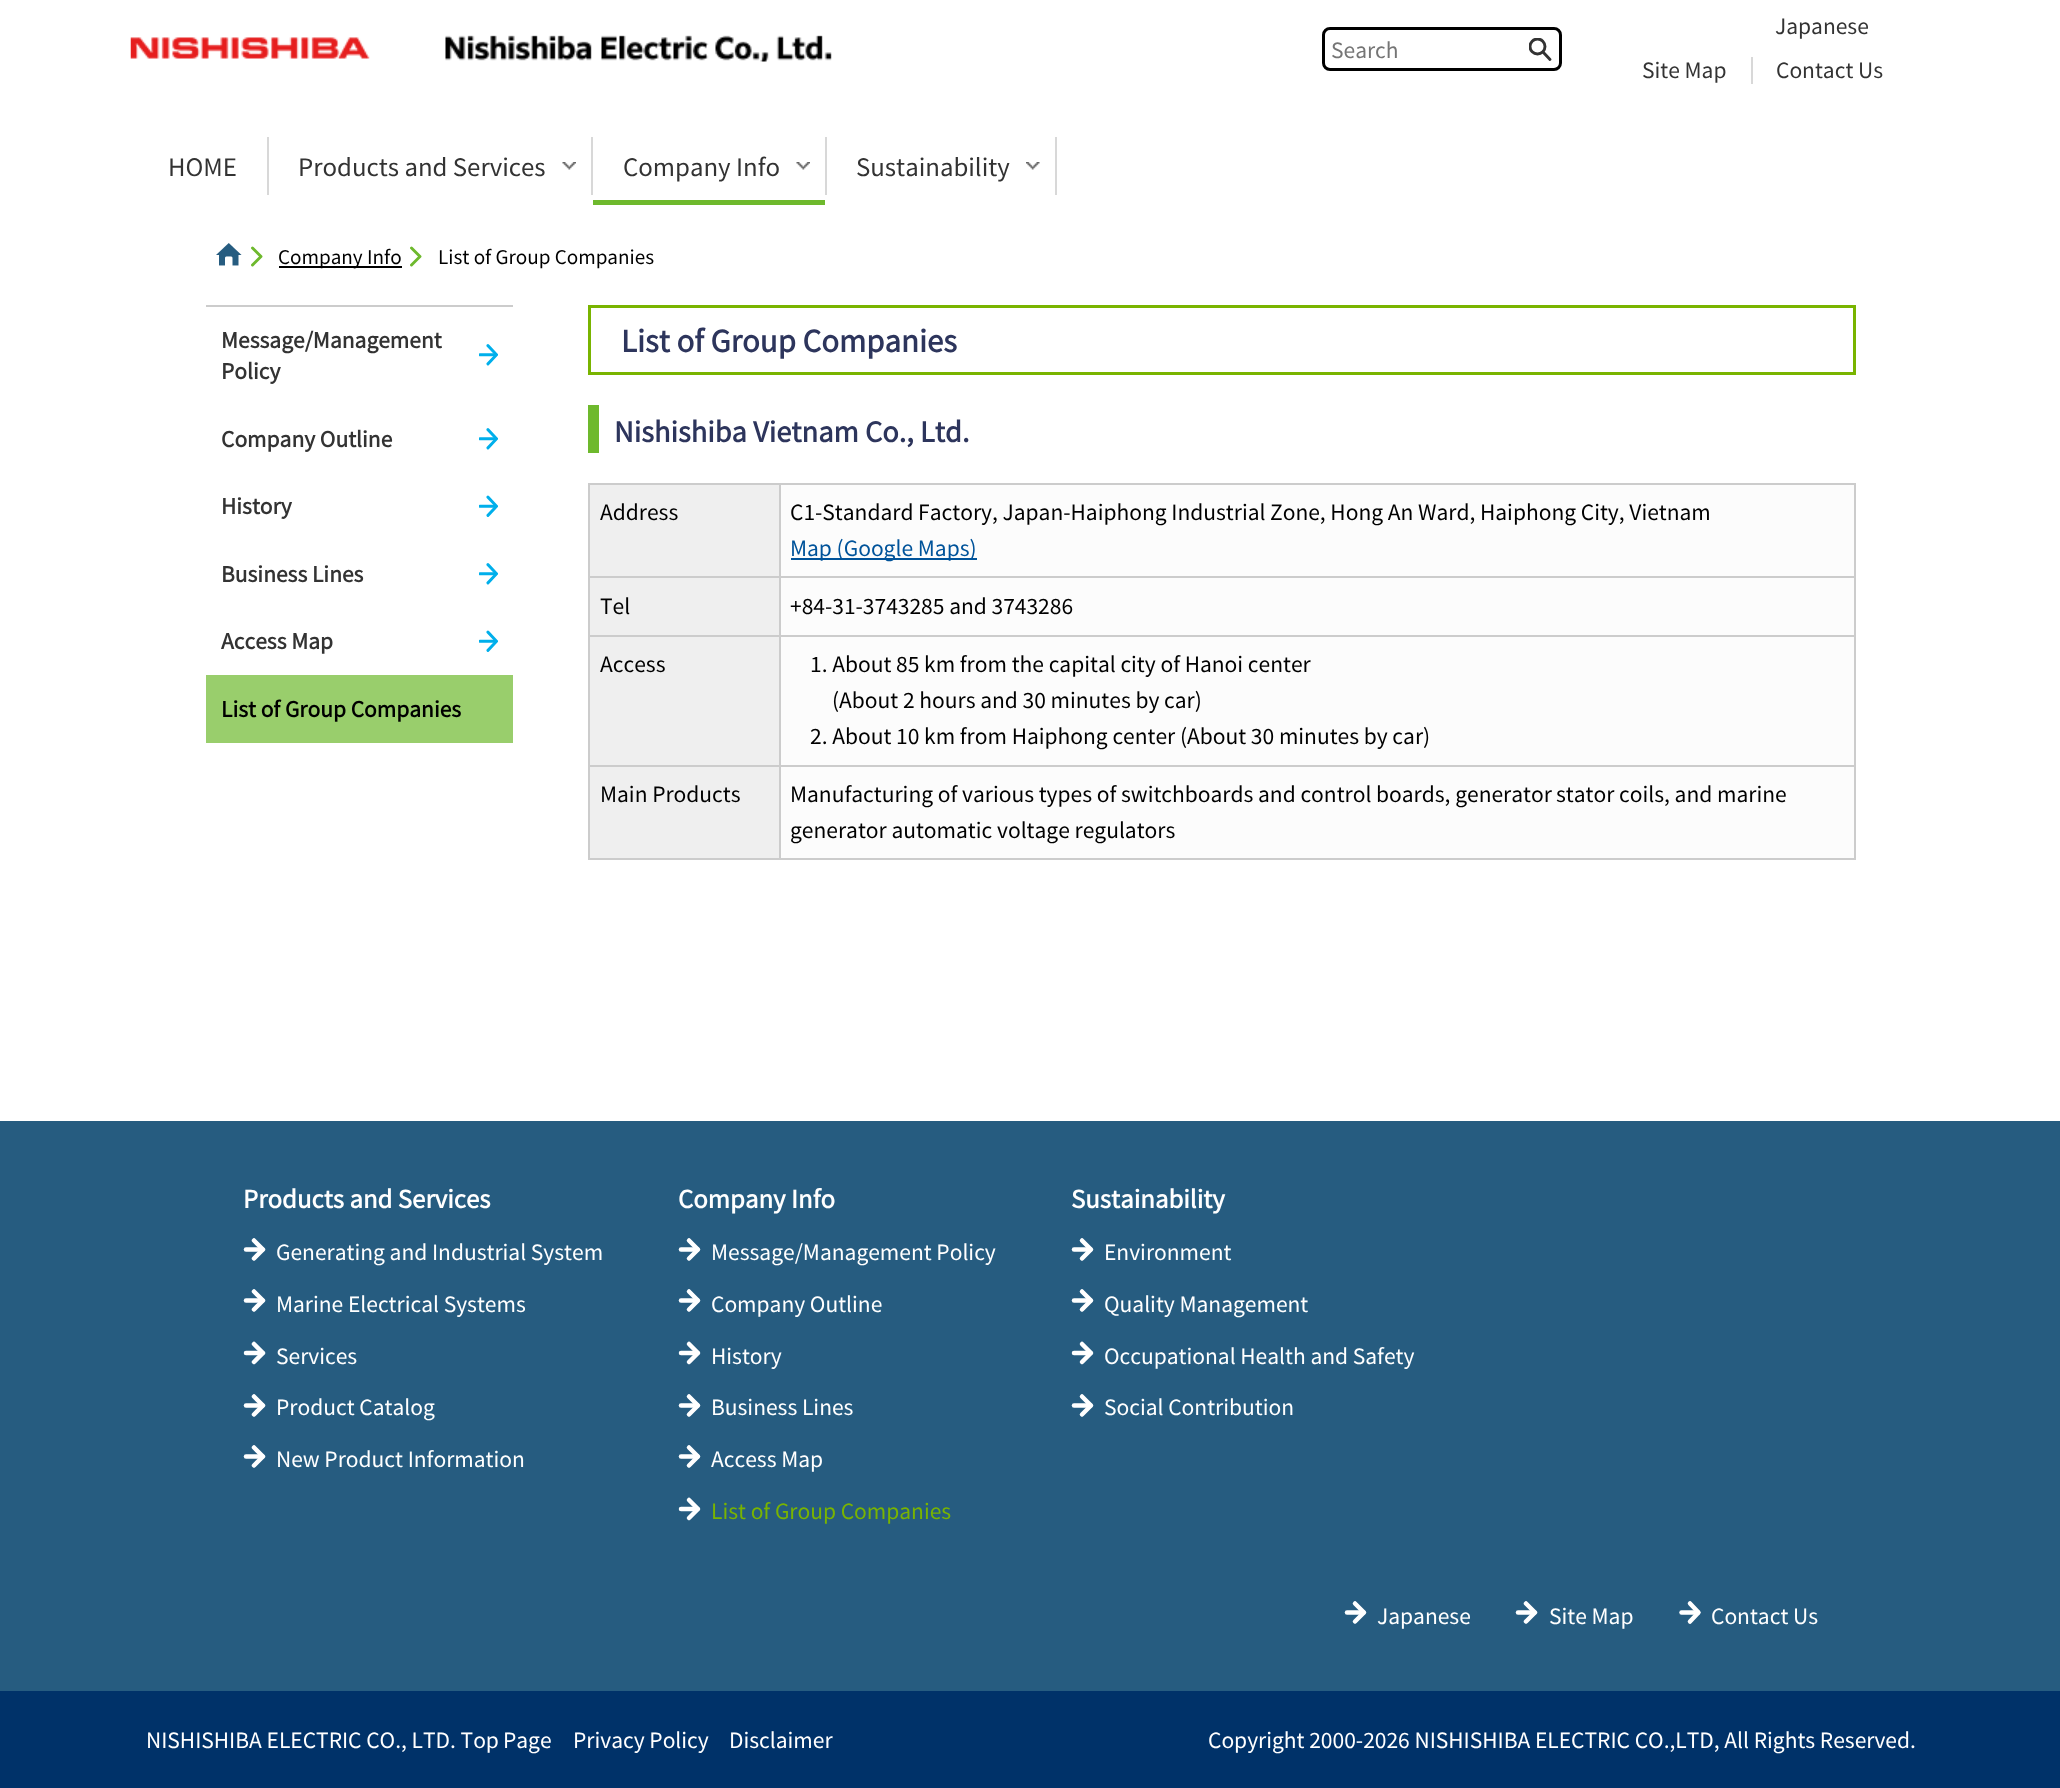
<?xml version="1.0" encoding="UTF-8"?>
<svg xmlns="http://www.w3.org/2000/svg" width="2060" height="1788">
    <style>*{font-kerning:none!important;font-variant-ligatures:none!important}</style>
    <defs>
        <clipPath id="clip1"><rect x="1529" y="38" width="24" height="24"/></clipPath>
    </defs>
    <rect width="100%" height="100%" fill="#FFFFFF"/>
    <image x="130" y="37" width="240" height="22" href="img_01.png"/>
    <image x="445" y="35" width="387" height="27" href="img_02.png"/>
    <rect x="1323.5" y="28.5" width="237" height="41" rx="6.5" fill="none" stroke="#000000" stroke-width="3"/>
    <text x="1331" y="58" font-family="Noto Sans JP" font-size="21" font-weight="100" fill="#757575">Search</text>
    <g clip-path="url(#clip1)">
        <circle cx="1537.5" cy="46.5" r="7.5" fill="none" stroke="#333333" stroke-width="2.9"/>
    </g>
    <path d="M 1543 52 L 1550 59.5" fill="none" stroke="#333333" stroke-width="2.9" stroke-linecap="round"/>
    <text x="1775" y="34" font-family="Noto Sans JP" font-size="21" font-weight="100" fill="#333333">Japanese</text>
    <text x="1642" y="78" font-family="Noto Sans JP" font-size="21" font-weight="100" fill="#333333">Site Map</text>
    <rect x="1751" y="57" width="2" height="27" fill="#D8D8D8"/>
    <text x="1776" y="78" font-family="Noto Sans JP" font-size="21" font-weight="100" fill="#333333">Contact Us</text>
    <rect x="267" y="137" width="2" height="58" fill="#D8D8D8"/>
    <text x="168" y="176" font-family="Noto Sans JP" font-size="24" font-weight="100" fill="#333333">HOME</text>
    <rect x="591" y="137" width="2" height="58" fill="#D8D8D8"/>
    <text x="298" y="176" font-family="Noto Sans JP" font-size="24" font-weight="100" fill="#333333">Products and Services</text>
    <image x="562" y="162" width="14" height="8" href="img_03.png"/>
    <rect x="825" y="137" width="2" height="58" fill="#D8D8D8"/>
    <text x="623" y="176" font-family="Noto Sans JP" font-size="24" font-weight="100" fill="#333333">Company Info</text>
    <image x="796" y="162" width="14" height="8" href="img_03.png"/>
    <rect x="593" y="200" width="232" height="5" fill="#6EB92D"/>
    <rect x="1055" y="137" width="2" height="58" fill="#D8D8D8"/>
    <text x="856" y="176" font-family="Noto Sans JP" font-size="24" font-weight="100" fill="#333333">Sustainability</text>
    <image x="1026" y="162" width="14" height="8" href="img_04.png"/>
    <image x="216" y="243" width="26" height="23" href="img_05.png"/>
    <path d="M 252.5 248 L 261 256.5 L 252.5 265" fill="none" stroke="#6EB92D" stroke-width="2.9" stroke-linecap="round" stroke-linejoin="round"/>
    <rect x="279" y="266" width="123" height="2" fill="#000000"/>
    <text x="278" y="264" font-family="Noto Sans JP" font-size="18.9" font-weight="100" fill="#000000">Company Info</text>
    <path d="M 411.5 248 L 420 256.5 L 411.5 265" fill="none" stroke="#6EB92D" stroke-width="2.9" stroke-linecap="round" stroke-linejoin="round"/>
    <text x="438" y="264" font-family="Noto Sans JP" font-size="18.9" font-weight="100" fill="#000000">List of Group Companies</text>
    <rect x="206" y="305" width="307" height="2" fill="#CCCCCC"/>
    <image x="479" y="344" width="19" height="22" href="img_06.png"/>
    <text font-family="Noto Sans JP" font-size="21" font-weight="700" fill="#333333">
        <tspan x="221" y="348">Message/Management</tspan>
        <tspan x="221" y="379">Policy</tspan>
    </text>
    <image x="479" y="428" width="19" height="22" href="img_06.png"/>
    <text x="221" y="447" font-family="Noto Sans JP" font-size="21" font-weight="700" fill="#333333">Company Outline</text>
    <image x="479" y="495" width="19" height="22" href="img_07.png"/>
    <text x="221" y="514" font-family="Noto Sans JP" font-size="21" font-weight="700" fill="#333333">History</text>
    <image x="479" y="563" width="19" height="22" href="img_06.png"/>
    <text x="221" y="582" font-family="Noto Sans JP" font-size="21" font-weight="700" fill="#333333">Business Lines</text>
    <image x="479" y="630" width="19" height="22" href="img_08.png"/>
    <text x="221" y="649" font-family="Noto Sans JP" font-size="21" font-weight="700" fill="#333333">Access Map</text>
    <rect x="206" y="675" width="307" height="68" fill="#99CE6C"/>
    <text x="221" y="717" font-family="Noto Sans JP" font-size="21" font-weight="700" fill="#000000">List of Group Companies</text>
    <rect x="589.5" y="306.5" width="1265" height="67" fill="none" stroke="#79B400" stroke-width="3"/>
    <text x="621" y="352" font-family="Noto Sans JP" font-size="29.4" font-weight="700" fill="#2D355C">List of Group Companies</text>
    <rect x="588" y="405" width="11" height="48" fill="#6EB92D"/>
    <text x="614" y="442" font-family="Noto Sans JP" font-size="27.25" font-weight="700" fill="#2D355C">Nishishiba Vietnam Co., Ltd.</text>
    <rect x="590" y="485" width="189" height="91" fill="#EFEFEF"/>
    <rect x="779" y="483" width="1077" height="2" fill="#CCCCCC"/>
    <rect x="779" y="576" width="1077" height="2" fill="#CCCCCC"/>
    <rect x="779" y="635" width="1077" height="2" fill="#CCCCCC"/>
    <rect x="779" y="765" width="1077" height="2" fill="#CCCCCC"/>
    <rect x="1854" y="765" width="2" height="95" fill="#CCCCCC"/>
    <rect x="779" y="858" width="1077" height="2" fill="#CCCCCC"/>
    <rect x="779" y="765" width="2" height="95" fill="#CCCCCC"/>
    <rect x="588" y="765" width="192" height="2" fill="#CCCCCC"/>
    <rect x="779" y="635" width="2" height="132" fill="#CCCCCC"/>
    <rect x="588" y="635" width="192" height="2" fill="#CCCCCC"/>
    <rect x="779" y="576" width="2" height="60" fill="#CCCCCC"/>
    <rect x="588" y="576" width="192" height="2" fill="#CCCCCC"/>
    <rect x="779" y="483" width="2" height="95" fill="#CCCCCC"/>
    <rect x="588" y="483" width="192" height="2" fill="#CCCCCC"/>
    <rect x="588" y="858" width="192" height="2" fill="#CCCCCC"/>
    <rect x="588" y="765" width="2" height="95" fill="#CCCCCC"/>
    <rect x="588" y="635" width="2" height="132" fill="#CCCCCC"/>
    <rect x="588" y="576" width="2" height="60" fill="#CCCCCC"/>
    <rect x="588" y="483" width="2" height="95" fill="#CCCCCC"/>
    <text x="600" y="520" font-family="Noto Sans JP" font-size="21" font-weight="100" fill="#000000">Address</text>
    <rect x="781" y="485" width="1073" height="91" fill="#FCFCFC"/>
    <rect x="1854" y="635" width="2" height="132" fill="#CCCCCC"/>
    <rect x="1854" y="576" width="2" height="60" fill="#CCCCCC"/>
    <rect x="1854" y="483" width="2" height="95" fill="#CCCCCC"/>
    <text x="790" y="520" font-family="Noto Sans JP" font-size="21" font-weight="100" fill="#000000">C1-Standard Factory, Japan-Haiphong Industrial</text>
    <text x="1270" y="520" font-family="Noto Sans JP" font-size="21" font-weight="100" fill="#000000">Zone, Hong An Ward, Haiphong City, Vietnam</text>
    <rect x="791" y="558" width="186" height="2" fill="#00539A"/>
    <text x="790" y="556" font-family="Noto Sans JP" font-size="21" font-weight="100" fill="#00539A">Map (Google Maps)</text>
    <rect x="590" y="578" width="189" height="57" fill="#EFEFEF"/>
    <text x="600" y="614" font-family="Noto Sans JP" font-size="21" font-weight="100" fill="#000000">Tel</text>
    <rect x="781" y="578" width="1073" height="57" fill="#FCFCFC"/>
    <text x="790" y="614" font-family="Noto Sans JP" font-size="21" font-weight="100" fill="#000000">+84-31-3743285 and 3743286</text>
    <rect x="590" y="637" width="189" height="128" fill="#EFEFEF"/>
    <text x="600" y="672" font-family="Noto Sans JP" font-size="21" font-weight="100" fill="#000000">Access</text>
    <rect x="781" y="637" width="1073" height="128" fill="#FCFCFC"/>
    <text x="810" y="672" font-family="Noto Sans JP" font-size="21" font-weight="100" fill="#000000">1. About 85 km from the capital city of Hanoi center</text>
    <text x="832" y="708" font-family="Noto Sans JP" font-size="21" font-weight="100" fill="#000000">(About 2 hours and 30 minutes by car)</text>
    <text x="810" y="744" font-family="Noto Sans JP" font-size="21" font-weight="100" fill="#000000">2. About 10 km from Haiphong center (About 30 minutes by car)</text>
    <rect x="590" y="767" width="189" height="91" fill="#EFEFEF"/>
    <text x="600" y="802" font-family="Noto Sans JP" font-size="21" font-weight="100" fill="#000000">Main Products</text>
    <rect x="781" y="767" width="1073" height="91" fill="#FCFCFC"/>
    <text x="790" y="802" font-family="Noto Sans JP" font-size="21" font-weight="100" fill="#000000">Manufacturing of various types of switchboards and control boards, generator</text>
    <text x="1556" y="802" font-family="Noto Sans JP" font-size="21" font-weight="100" fill="#000000">stator coils, and marine</text>
    <text x="790" y="838" font-family="Noto Sans JP" font-size="21" font-weight="100" fill="#000000">generator automatic voltage regulators</text>
    <rect x="0" y="1121" width="2060" height="570" fill="#265C80"/>
    <text x="243" y="1208" font-family="Noto Sans JP" font-size="24" font-weight="700" fill="#FFFFFF">Products and Services</text>
    <path d="M 254 1240.5 L 263 1249.5 L 254 1258.5" fill="none" stroke="#FFFFFF" stroke-width="4.5" stroke-linecap="round" stroke-linejoin="round"/>
    <path d="M 262.5 1249.5 H 246" fill="none" stroke="#FFFFFF" stroke-width="4.5" stroke-linecap="round"/>
    <text x="276" y="1260" font-family="Noto Sans JP" font-size="21" font-weight="100" fill="#FFFFFF">Generating and Industrial System</text>
    <path d="M 254 1291.5 L 263 1300.5 L 254 1309.5" fill="none" stroke="#FFFFFF" stroke-width="4.5" stroke-linecap="round" stroke-linejoin="round"/>
    <path d="M 262.5 1300.5 H 246" fill="none" stroke="#FFFFFF" stroke-width="4.5" stroke-linecap="round"/>
    <text x="276" y="1312" font-family="Noto Sans JP" font-size="21" font-weight="100" fill="#FFFFFF">Marine Electrical Systems</text>
    <path d="M 254 1344 L 263 1353 L 254 1362" fill="none" stroke="#FFFFFF" stroke-width="4.5" stroke-linecap="round" stroke-linejoin="round"/>
    <path d="M 262.5 1353 H 246" fill="none" stroke="#FFFFFF" stroke-width="4.5" stroke-linecap="round"/>
    <text x="276" y="1364" font-family="Noto Sans JP" font-size="21" font-weight="100" fill="#FFFFFF">Services</text>
    <path d="M 254 1396.5 L 263 1405.5 L 254 1414.5" fill="none" stroke="#FFFFFF" stroke-width="4.5" stroke-linecap="round" stroke-linejoin="round"/>
    <path d="M 262.5 1405.5 H 246" fill="none" stroke="#FFFFFF" stroke-width="4.5" stroke-linecap="round"/>
    <text x="276" y="1415" font-family="Noto Sans JP" font-size="21" font-weight="100" fill="#FFFFFF">Product Catalog</text>
    <path d="M 254 1447.5 L 263 1456.5 L 254 1465.5" fill="none" stroke="#FFFFFF" stroke-width="4.5" stroke-linecap="round" stroke-linejoin="round"/>
    <path d="M 262.5 1456.5 H 246" fill="none" stroke="#FFFFFF" stroke-width="4.5" stroke-linecap="round"/>
    <text x="276" y="1467" font-family="Noto Sans JP" font-size="21" font-weight="100" fill="#FFFFFF">New Product Information</text>
    <text x="678" y="1208" font-family="Noto Sans JP" font-size="24" font-weight="700" fill="#FFFFFF">Company Info</text>
    <path d="M 689 1240.5 L 698 1249.5 L 689 1258.5" fill="none" stroke="#FFFFFF" stroke-width="4.5" stroke-linecap="round" stroke-linejoin="round"/>
    <path d="M 697.5 1249.5 H 681" fill="none" stroke="#FFFFFF" stroke-width="4.5" stroke-linecap="round"/>
    <text x="711" y="1260" font-family="Noto Sans JP" font-size="21" font-weight="100" fill="#FFFFFF">Message/Management Policy</text>
    <path d="M 689 1291.5 L 698 1300.5 L 689 1309.5" fill="none" stroke="#FFFFFF" stroke-width="4.5" stroke-linecap="round" stroke-linejoin="round"/>
    <path d="M 697.5 1300.5 H 681" fill="none" stroke="#FFFFFF" stroke-width="4.5" stroke-linecap="round"/>
    <text x="711" y="1312" font-family="Noto Sans JP" font-size="21" font-weight="100" fill="#FFFFFF">Company Outline</text>
    <path d="M 689 1344 L 698 1353 L 689 1362" fill="none" stroke="#FFFFFF" stroke-width="4.5" stroke-linecap="round" stroke-linejoin="round"/>
    <path d="M 697.5 1353 H 681" fill="none" stroke="#FFFFFF" stroke-width="4.5" stroke-linecap="round"/>
    <text x="711" y="1364" font-family="Noto Sans JP" font-size="21" font-weight="100" fill="#FFFFFF">History</text>
    <path d="M 689 1396.5 L 698 1405.5 L 689 1414.5" fill="none" stroke="#FFFFFF" stroke-width="4.5" stroke-linecap="round" stroke-linejoin="round"/>
    <path d="M 697.5 1405.5 H 681" fill="none" stroke="#FFFFFF" stroke-width="4.5" stroke-linecap="round"/>
    <text x="711" y="1415" font-family="Noto Sans JP" font-size="21" font-weight="100" fill="#FFFFFF">Business Lines</text>
    <path d="M 689 1447.5 L 698 1456.5 L 689 1465.5" fill="none" stroke="#FFFFFF" stroke-width="4.5" stroke-linecap="round" stroke-linejoin="round"/>
    <path d="M 697.5 1456.5 H 681" fill="none" stroke="#FFFFFF" stroke-width="4.5" stroke-linecap="round"/>
    <text x="711" y="1467" font-family="Noto Sans JP" font-size="21" font-weight="100" fill="#FFFFFF">Access Map</text>
    <path d="M 689 1500 L 698 1509 L 689 1518" fill="none" stroke="#FFFFFF" stroke-width="4.5" stroke-linecap="round" stroke-linejoin="round"/>
    <path d="M 697.5 1509 H 681" fill="none" stroke="#FFFFFF" stroke-width="4.5" stroke-linecap="round"/>
    <text x="711" y="1519" font-family="Noto Sans JP" font-size="21" font-weight="100" fill="#79B400">List of Group Companies</text>
    <text x="1071" y="1208" font-family="Noto Sans JP" font-size="24" font-weight="700" fill="#FFFFFF">Sustainability</text>
    <path d="M 1082 1240.5 L 1091 1249.5 L 1082 1258.5" fill="none" stroke="#FFFFFF" stroke-width="4.5" stroke-linecap="round" stroke-linejoin="round"/>
    <path d="M 1090.5 1249.5 H 1074" fill="none" stroke="#FFFFFF" stroke-width="4.5" stroke-linecap="round"/>
    <text x="1104" y="1260" font-family="Noto Sans JP" font-size="21" font-weight="100" fill="#FFFFFF">Environment</text>
    <path d="M 1082 1291.5 L 1091 1300.5 L 1082 1309.5" fill="none" stroke="#FFFFFF" stroke-width="4.5" stroke-linecap="round" stroke-linejoin="round"/>
    <path d="M 1090.5 1300.5 H 1074" fill="none" stroke="#FFFFFF" stroke-width="4.5" stroke-linecap="round"/>
    <text x="1104" y="1312" font-family="Noto Sans JP" font-size="21" font-weight="100" fill="#FFFFFF">Quality Management</text>
    <path d="M 1082 1344 L 1091 1353 L 1082 1362" fill="none" stroke="#FFFFFF" stroke-width="4.5" stroke-linecap="round" stroke-linejoin="round"/>
    <path d="M 1090.5 1353 H 1074" fill="none" stroke="#FFFFFF" stroke-width="4.5" stroke-linecap="round"/>
    <text x="1104" y="1364" font-family="Noto Sans JP" font-size="21" font-weight="100" fill="#FFFFFF">Occupational Health and Safety</text>
    <path d="M 1082 1396.5 L 1091 1405.5 L 1082 1414.5" fill="none" stroke="#FFFFFF" stroke-width="4.5" stroke-linecap="round" stroke-linejoin="round"/>
    <path d="M 1090.5 1405.5 H 1074" fill="none" stroke="#FFFFFF" stroke-width="4.5" stroke-linecap="round"/>
    <text x="1104" y="1415" font-family="Noto Sans JP" font-size="21" font-weight="100" fill="#FFFFFF">Social Contribution</text>
    <path d="M 1355 1603.5 L 1364 1612.5 L 1355 1621.5" fill="none" stroke="#FFFFFF" stroke-width="4.5" stroke-linecap="round" stroke-linejoin="round"/>
    <path d="M 1363.5 1612.5 H 1347" fill="none" stroke="#FFFFFF" stroke-width="4.5" stroke-linecap="round"/>
    <text x="1377" y="1624" font-family="Noto Sans JP" font-size="21" font-weight="100" fill="#FFFFFF">Japanese</text>
    <path d="M 1526 1603.5 L 1535 1612.5 L 1526 1621.5" fill="none" stroke="#FFFFFF" stroke-width="4.5" stroke-linecap="round" stroke-linejoin="round"/>
    <path d="M 1534.5 1612.5 H 1518" fill="none" stroke="#FFFFFF" stroke-width="4.5" stroke-linecap="round"/>
    <text x="1549" y="1624" font-family="Noto Sans JP" font-size="21" font-weight="100" fill="#FFFFFF">Site Map</text>
    <path d="M 1690 1603.5 L 1698.5 1612.5 L 1690 1621.5" fill="none" stroke="#FFFFFF" stroke-width="4.5" stroke-linecap="round" stroke-linejoin="round"/>
    <path d="M 1698 1612.5 H 1681.5" fill="none" stroke="#FFFFFF" stroke-width="4.5" stroke-linecap="round"/>
    <text x="1711" y="1624" font-family="Noto Sans JP" font-size="21" font-weight="100" fill="#FFFFFF">Contact Us</text>
    <rect x="0" y="1691" width="2060" height="97" fill="#003269"/>
    <text x="146" y="1748" font-family="Noto Sans JP" font-size="21" font-weight="100" fill="#FFFFFF">NISHISHIBA ELECTRIC CO., LTD. Top</text>
    <text x="503" y="1748" font-family="Noto Sans JP" font-size="21" font-weight="100" fill="#FFFFFF">Page</text>
    <text x="573" y="1748" font-family="Noto Sans JP" font-size="21" font-weight="100" fill="#FFFFFF">Privacy Policy</text>
    <text x="729" y="1748" font-family="Noto Sans JP" font-size="21" font-weight="100" fill="#FFFFFF">Disclaimer</text>
    <text x="1208" y="1748" font-family="Noto Sans JP" font-size="21" font-weight="100" fill="#FFFFFF">Copyright 2000-2026 NISHISHIBA ELECTRIC CO.,LTD, All Rights Reserved.</text>
</svg>
